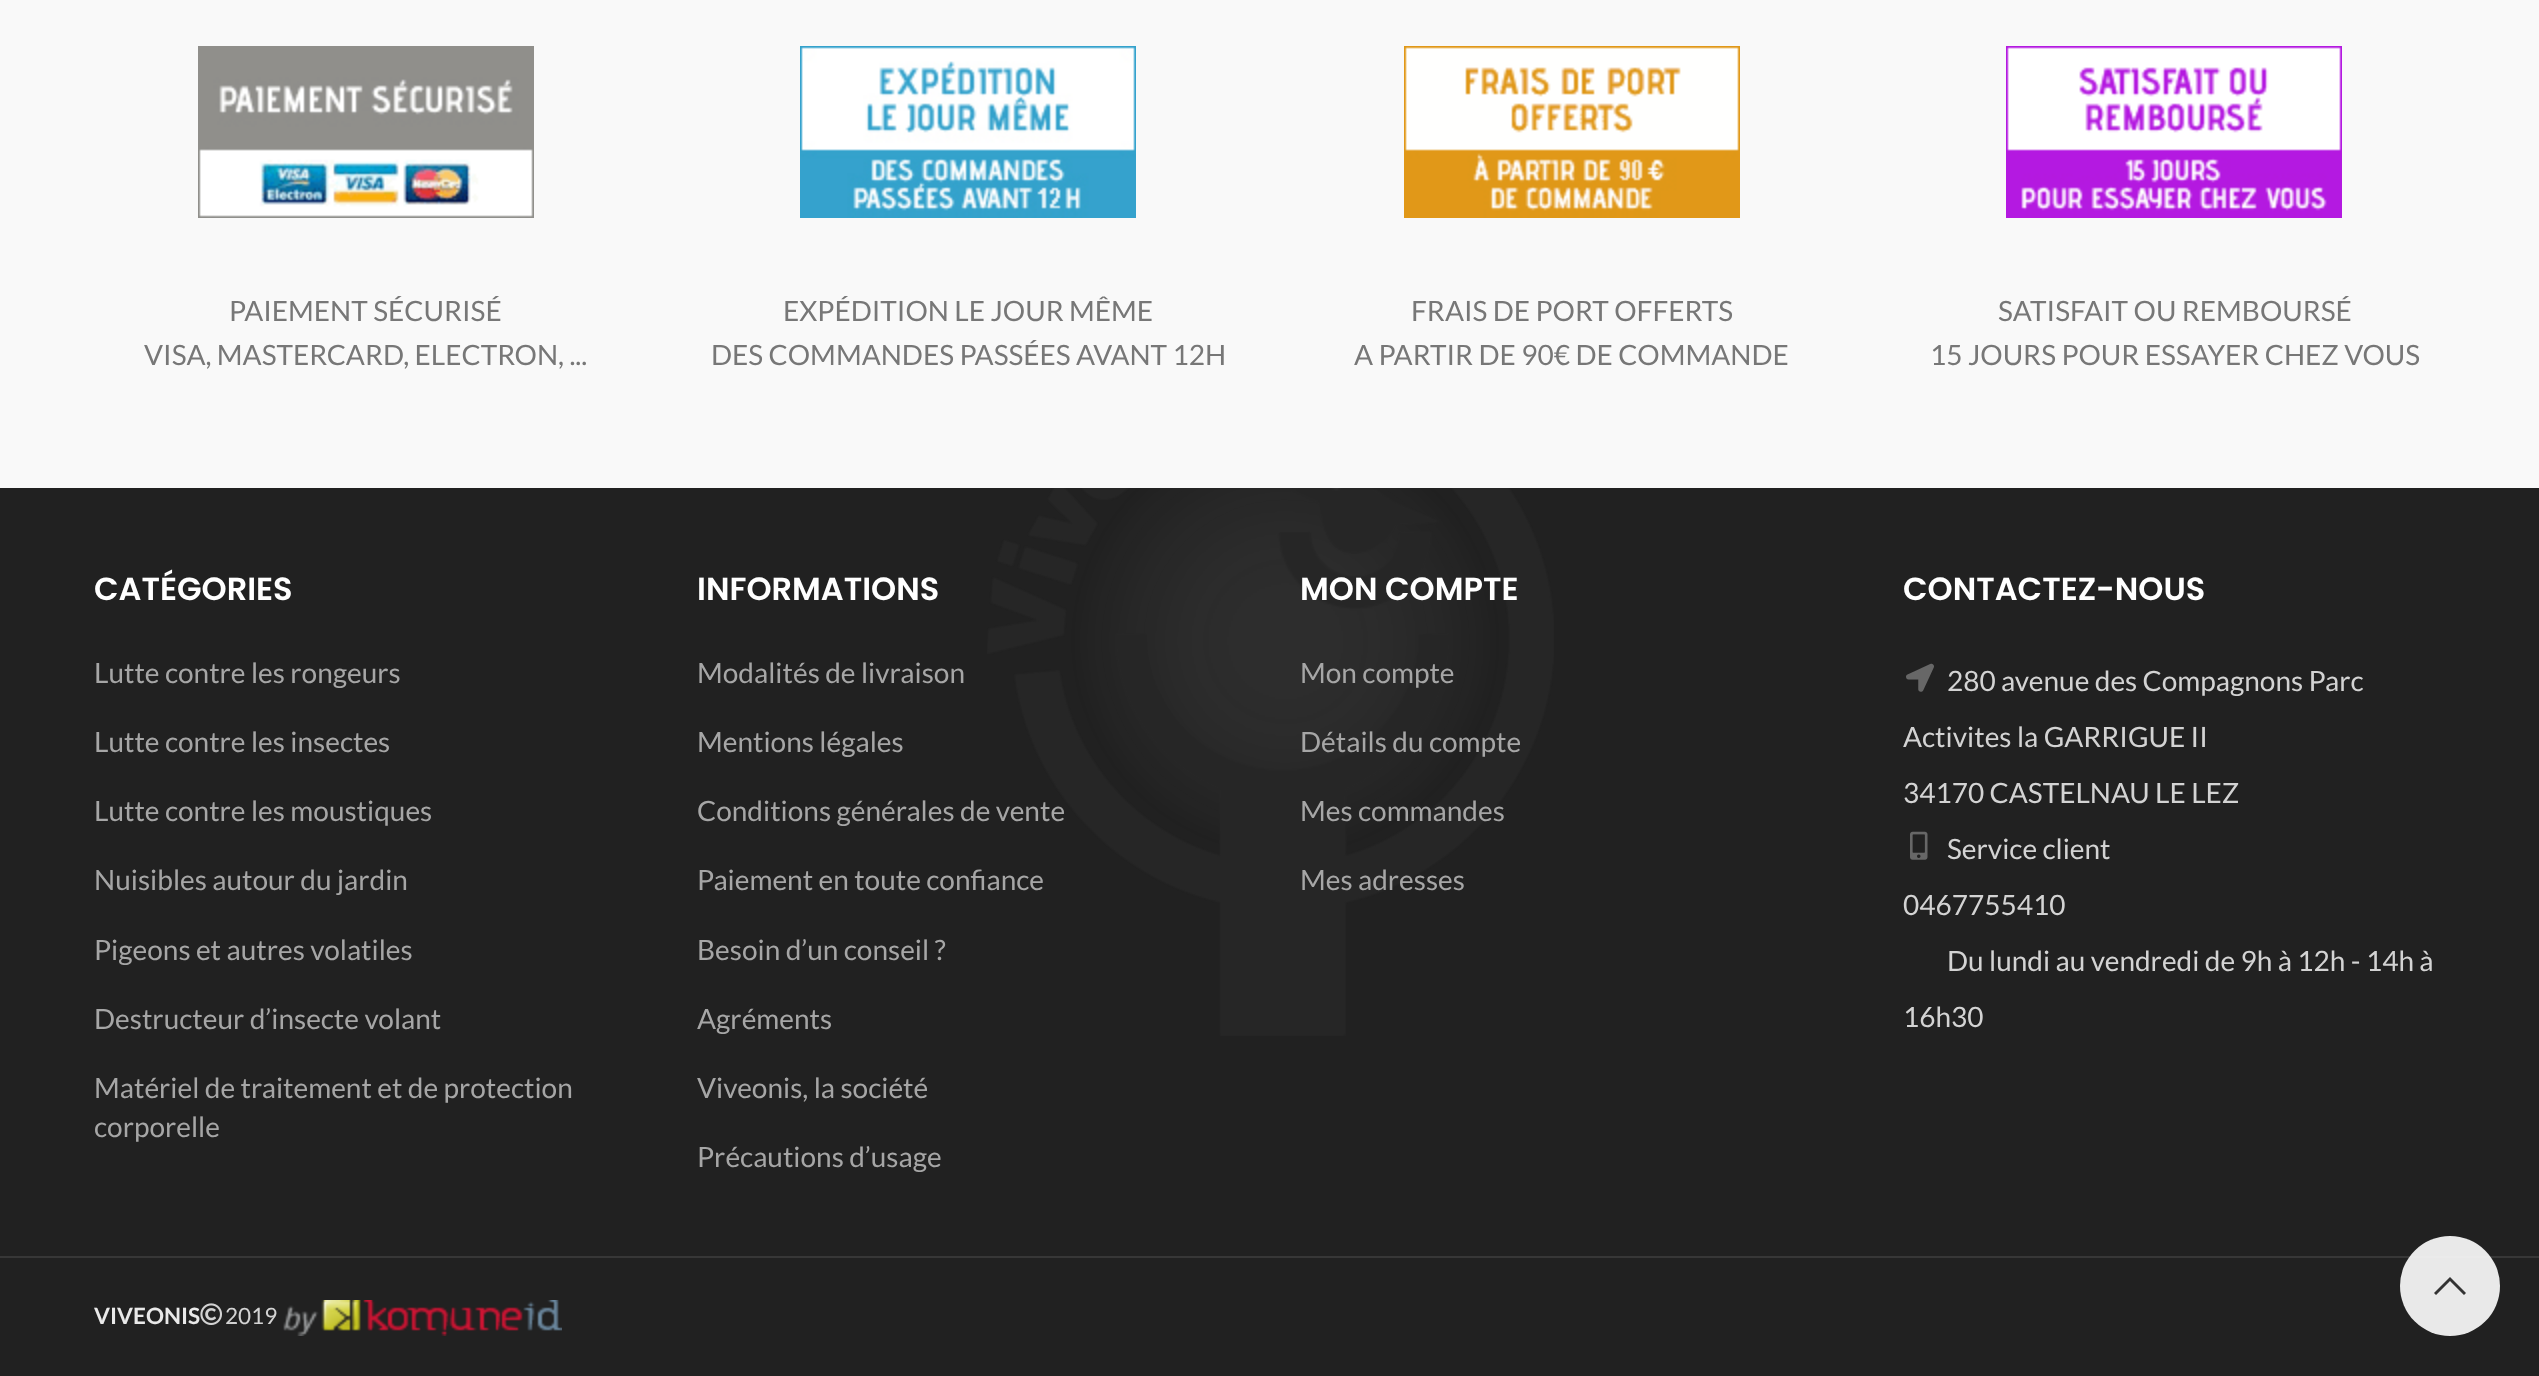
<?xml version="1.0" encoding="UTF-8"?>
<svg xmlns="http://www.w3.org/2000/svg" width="2539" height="1376">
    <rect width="100%" height="100%" fill="#212121"/>
    <rect x="0" y="0" width="2539" height="488" fill="#F9F9F9"/>
    <image x="198" y="46" width="336" height="172" href="img_01.png"/>
    <text x="229" y="321" font-family="Lato" font-size="28" fill="#777777">PAIEMENT SÉCURISÉ</text>
    <text x="144" y="365" font-family="Lato" font-size="28" fill="#777777">VISA, MASTERCARD, ELECTRON, ...</text>
    <image x="800" y="46" width="336" height="172" href="img_02.png"/>
    <text x="783" y="321" font-family="Lato" font-size="28" fill="#777777">EXPÉDITION LE JOUR MÊME</text>
    <text x="711" y="365" font-family="Lato" font-size="28" fill="#777777">DES COMMANDES PASSÉES AVANT 12H</text>
    <image x="1404" y="46" width="336" height="172" href="img_03.png"/>
    <text x="1411" y="321" font-family="Lato" font-size="28" fill="#777777">FRAIS DE PORT OFFERTS</text>
    <text x="1354" y="365" font-family="Lato" font-size="28" fill="#777777">A PARTIR DE 90€ DE COMMANDE</text>
    <image x="2006" y="46" width="336" height="172" href="img_04.png"/>
    <text x="1998" y="321" font-family="Lato" font-size="28" fill="#777777">SATISFAIT OU REMBOURSÉ</text>
    <text x="1930" y="365" font-family="Lato" font-size="28" fill="#777777">15 JOURS POUR ESSAYER CHEZ VOUS</text>
    <image x="987" y="488" width="567" height="548" href="img_05.png"/>
    <text x="94" y="600" font-family="Poppins" font-size="32" font-weight="600" fill="#FFFFFF">CATÉGORIES</text>
    <text x="94" y="683" font-family="Lato" font-size="28" fill="#A6A6A6">Lutte contre les rongeurs</text>
    <text x="94" y="752" font-family="Lato" font-size="28" fill="#A6A6A6">Lutte contre les insectes</text>
    <text x="94" y="821" font-family="Lato" font-size="28" fill="#A6A6A6">Lutte contre les moustiques</text>
    <text x="94" y="890" font-family="Lato" font-size="28" fill="#A6A6A6">Nuisibles autour du jardin</text>
    <text x="94" y="960" font-family="Lato" font-size="28" fill="#A6A6A6">Pigeons et autres volatiles</text>
    <text x="94" y="1029" font-family="Lato" font-size="28" fill="#A6A6A6">Destructeur d’insecte volant</text>
    <text font-family="Lato" font-size="28" fill="#A6A6A6">
        <tspan x="94" y="1098">Matériel de traitement et de protection</tspan>
        <tspan x="94" y="1137">corporelle</tspan>
    </text>
    <text x="697" y="600" font-family="Poppins" font-size="32" font-weight="600" fill="#FFFFFF">INFORMATIONS</text>
    <text x="697" y="683" font-family="Lato" font-size="28" fill="#A6A6A6">Modalités de livraison</text>
    <text x="697" y="752" font-family="Lato" font-size="28" fill="#A6A6A6">Mentions légales</text>
    <text x="697" y="821" font-family="Lato" font-size="28" fill="#A6A6A6">Conditions générales de vente</text>
    <text x="697" y="890" font-family="Lato" font-size="28" fill="#A6A6A6">Paiement en toute confiance</text>
    <text x="697" y="960" font-family="Lato" font-size="28" fill="#A6A6A6">Besoin d’un conseil ?</text>
    <text x="697" y="1029" font-family="Lato" font-size="28" fill="#A6A6A6">Agréments</text>
    <text x="697" y="1098" font-family="Lato" font-size="28" fill="#A6A6A6">Viveonis, la société</text>
    <text x="697" y="1167" font-family="Lato" font-size="28" fill="#A6A6A6">Précautions d’usage</text>
    <text x="1300" y="600" font-family="Poppins" font-size="32" font-weight="600" fill="#FFFFFF">MON COMPTE</text>
    <text x="1300" y="683" font-family="Lato" font-size="28" fill="#A6A6A6">Mon compte</text>
    <text x="1300" y="752" font-family="Lato" font-size="28" fill="#A6A6A6">Détails du compte</text>
    <text x="1300" y="821" font-family="Lato" font-size="28" fill="#A6A6A6">Mes commandes</text>
    <text x="1300" y="890" font-family="Lato" font-size="28" fill="#A6A6A6">Mes adresses</text>
    <text x="1903" y="600" font-family="Poppins" font-size="32" font-weight="600" fill="#FFFFFF">CONTACTEZ-NOUS</text>
    <image x="1906" y="663" width="28" height="29" href="img_06.png"/>
    <text x="1947" y="691" font-family="Lato" font-size="28" fill="#D3D3D3">280 avenue des Compagnons Parc</text>
    <text x="1903" y="747" font-family="Lato" font-size="28" fill="#D3D3D3">Activites la GARRIGUE II</text>
    <text x="1903" y="803" font-family="Lato" font-size="28" fill="#D3D3D3">34170 CASTELNAU LE LEZ</text>
    <image x="1910" y="831" width="18" height="29" href="img_07.png"/>
    <text x="1947" y="859" font-family="Lato" font-size="28" fill="#D3D3D3">Service client</text>
    <text x="1903" y="915" font-family="Lato" font-size="28" fill="#D3D3D3">0467755410</text>
    <text x="1947" y="971" font-family="Lato" font-size="28" fill="#D3D3D3">Du lundi au vendredi de 9h à 12h - 14h à</text>
    <text x="1903" y="1027" font-family="Lato" font-size="28" fill="#D3D3D3">16h30</text>
    <rect x="0" y="1256" width="2539" height="2" fill="#373737"/>
    <text x="94" y="1324" font-family="Lato" font-size="22.5" font-weight="700" fill="#E9E9E9">VIVEONIS</text>
    <image x="200" y="1303" width="22" height="22" href="img_08.png"/>
    <text x="225" y="1324" font-family="Lato" font-size="22.5" fill="#D3D3D3">2019</text>
    <image x="283" y="1300" width="279" height="36" href="img_09.png"/>
    <circle cx="2450" cy="1286" r="50" fill="#FFFFFF" fill-opacity="0.9"/>
    <path d="M 2450 1277 L 2466 1293 L 2464 1295 L 2450 1281 L 2436 1295 L 2434 1293 Z" fill="#333333"/>
</svg>
